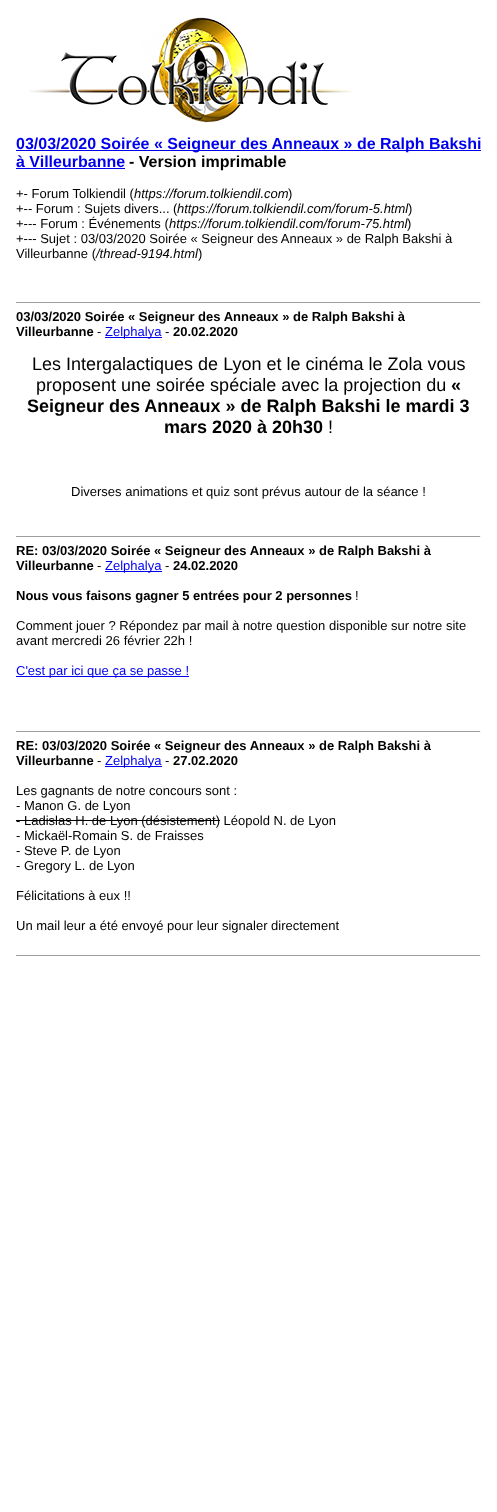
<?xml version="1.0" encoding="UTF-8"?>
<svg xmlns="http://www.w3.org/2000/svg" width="497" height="1512">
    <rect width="100%" height="100%" fill="#FFFFFF"/>
    <image x="29" y="17" width="324" height="106" href="img_01.png"/>
    <rect x="16" y="150" width="465" height="1" fill="#0000EE"/>
    <text font-family="Liberation Sans" font-size="16" font-weight="700" fill="#0000EE">
        <tspan x="16" y="149">03/03/2020 Soirée « Seigneur des Anneaux » de Ralph Bakshi</tspan>
        <tspan x="16" y="167">à Villeurbanne</tspan>
    </text>
    <rect x="16" y="168" width="109" height="1" fill="#0000EE"/>
    <text x="129" y="167" font-family="Liberation Sans" font-size="16" font-weight="700" fill="#000000">- Version imprimable</text>
    <text x="16" y="198" font-family="Liberation Sans" font-size="13" fill="#000000">+- Forum Tolkiendil (</text>
    <text x="134" y="198" font-family="Liberation Sans" font-size="13" font-style="italic" fill="#000000">https://forum.tolkiendil.com</text>
    <text x="288" y="198" font-family="Liberation Sans" font-size="13" fill="#000000">)</text>
    <text x="16" y="213" font-family="Liberation Sans" font-size="13" fill="#000000">+-- Forum : Sujets divers... (</text>
    <text x="177" y="213" font-family="Liberation Sans" font-size="13" font-style="italic" fill="#000000">https://forum.tolkiendil.com/forum-5.html</text>
    <text x="408" y="213" font-family="Liberation Sans" font-size="13" fill="#000000">)</text>
    <text x="16" y="228" font-family="Liberation Sans" font-size="13" fill="#000000">+--- Forum : Événements (</text>
    <text x="169" y="228" font-family="Liberation Sans" font-size="13" font-style="italic" fill="#000000">https://forum.tolkiendil.com/forum-75.html</text>
    <text x="407" y="228" font-family="Liberation Sans" font-size="13" fill="#000000">)</text>
    <text font-family="Liberation Sans" font-size="13" fill="#000000">
        <tspan x="16" y="243">+--- Sujet : 03/03/2020 Soirée « Seigneur des Anneaux » de Ralph Bakshi à</tspan>
        <tspan x="16" y="258">Villeurbanne (</tspan>
    </text>
    <text x="96" y="258" font-family="Liberation Sans" font-size="13" font-style="italic" fill="#000000">/thread-9194.html</text>
    <text x="198" y="258" font-family="Liberation Sans" font-size="13" fill="#000000">)</text>
    <rect x="16" y="302" width="465" height="1" fill="#9F9F9F"/>
    <rect x="480" y="302" width="1" height="1" fill="#EEEEEE"/>
    <text font-family="Liberation Sans" font-size="13" font-weight="700" fill="#000000">
        <tspan x="16" y="321">03/03/2020 Soirée « Seigneur des Anneaux » de Ralph Bakshi à</tspan>
        <tspan x="16" y="336">Villeurbanne</tspan>
    </text>
    <text x="97" y="336" font-family="Liberation Sans" font-size="13" fill="#000000">-</text>
    <rect x="105" y="337" width="57" height="1" fill="#0000EE"/>
    <text x="105" y="336" font-family="Liberation Sans" font-size="13" fill="#0000EE">Zelphalya</text>
    <text x="165" y="336" font-family="Liberation Sans" font-size="13" fill="#000000">-</text>
    <text x="173" y="336" font-family="Liberation Sans" font-size="13" font-weight="700" fill="#000000">20.02.2020</text>
    <text x="32" y="370" font-family="Liberation Sans" font-size="18" fill="#000000">Les Intergalactiques de Lyon et le cinéma le Zola vous</text>
    <text x="36" y="391" font-family="Liberation Sans" font-size="18" fill="#000000">proposent une soirée spéciale avec la projection du</text>
    <text x="451" y="391" font-family="Liberation Sans" font-size="18" font-weight="700" fill="#000000">«</text>
    <text x="27" y="412" font-family="Liberation Sans" font-size="18" font-weight="700" fill="#000000">Seigneur des Anneaux » de Ralph Bakshi le mardi 3</text>
    <text x="164" y="433" font-family="Liberation Sans" font-size="18" font-weight="700" fill="#000000">mars 2020 à 20h30</text>
    <text x="328" y="433" font-family="Liberation Sans" font-size="18" fill="#000000">!</text>
    <text x="71" y="496" font-family="Liberation Sans" font-size="13" fill="#000000">Diverses animations et quiz sont prévus autour de la séance !</text>
    <rect x="16" y="536" width="465" height="1" fill="#9F9F9F"/>
    <rect x="480" y="536" width="1" height="1" fill="#EEEEEE"/>
    <text font-family="Liberation Sans" font-size="13" font-weight="700" fill="#000000">
        <tspan x="16" y="555">RE: 03/03/2020 Soirée « Seigneur des Anneaux » de Ralph Bakshi à</tspan>
        <tspan x="16" y="570">Villeurbanne</tspan>
    </text>
    <text x="97" y="570" font-family="Liberation Sans" font-size="13" fill="#000000">-</text>
    <rect x="105" y="571" width="57" height="1" fill="#0000EE"/>
    <text x="105" y="570" font-family="Liberation Sans" font-size="13" fill="#0000EE">Zelphalya</text>
    <text x="165" y="570" font-family="Liberation Sans" font-size="13" fill="#000000">-</text>
    <text x="173" y="570" font-family="Liberation Sans" font-size="13" font-weight="700" fill="#000000">24.02.2020</text>
    <text x="16" y="600" font-family="Liberation Sans" font-size="13" font-weight="700" fill="#000000">Nous vous faisons gagner 5 entrées pour 2 personnes</text>
    <text x="355" y="600" font-family="Liberation Sans" font-size="13" fill="#000000">!</text>
    <text font-family="Liberation Sans" font-size="13" fill="#000000">
        <tspan x="16" y="630">Comment jouer ? Répondez par mail à notre question disponible sur notre site</tspan>
        <tspan x="16" y="645">avant mercredi 26 février 22h !</tspan>
    </text>
    <rect x="16" y="676" width="173" height="1" fill="#0000EE"/>
    <text x="16" y="675" font-family="Liberation Sans" font-size="13" fill="#0000EE">C'est par ici que ça se passe !</text>
    <rect x="16" y="731" width="465" height="1" fill="#9F9F9F"/>
    <rect x="480" y="731" width="1" height="1" fill="#EEEEEE"/>
    <text font-family="Liberation Sans" font-size="13" font-weight="700" fill="#000000">
        <tspan x="16" y="750">RE: 03/03/2020 Soirée « Seigneur des Anneaux » de Ralph Bakshi à</tspan>
        <tspan x="16" y="765">Villeurbanne</tspan>
    </text>
    <text x="97" y="765" font-family="Liberation Sans" font-size="13" fill="#000000">-</text>
    <rect x="105" y="766" width="57" height="1" fill="#0000EE"/>
    <text x="105" y="765" font-family="Liberation Sans" font-size="13" fill="#0000EE">Zelphalya</text>
    <text x="165" y="765" font-family="Liberation Sans" font-size="13" fill="#000000">-</text>
    <text x="173" y="765" font-family="Liberation Sans" font-size="13" font-weight="700" fill="#000000">27.02.2020</text>
    <text font-family="Liberation Sans" font-size="13" fill="#000000">
        <tspan x="16" y="795">Les gagnants de notre concours sont :</tspan>
        <tspan x="16" y="810">- Manon G. de Lyon</tspan>
        <tspan x="16" y="825">- Ladislas H. de Lyon (désistement) Léopold N. de Lyon</tspan>
    </text>
    <rect x="16" y="820" width="204" height="1" fill="#000000"/>
    <text font-family="Liberation Sans" font-size="13" fill="#000000">
        <tspan x="16" y="840">- Mickaël-Romain S. de Fraisses</tspan>
        <tspan x="16" y="855">- Steve P. de Lyon</tspan>
        <tspan x="16" y="870">- Gregory L. de Lyon</tspan>
    </text>
    <text x="16" y="900" font-family="Liberation Sans" font-size="13" fill="#000000">Félicitations à eux !!</text>
    <text x="16" y="930" font-family="Liberation Sans" font-size="13" fill="#000000">Un mail leur a été envoyé pour leur signaler directement</text>
    <rect x="16" y="955" width="465" height="1" fill="#9F9F9F"/>
    <rect x="480" y="955" width="1" height="1" fill="#EEEEEE"/>
</svg>
